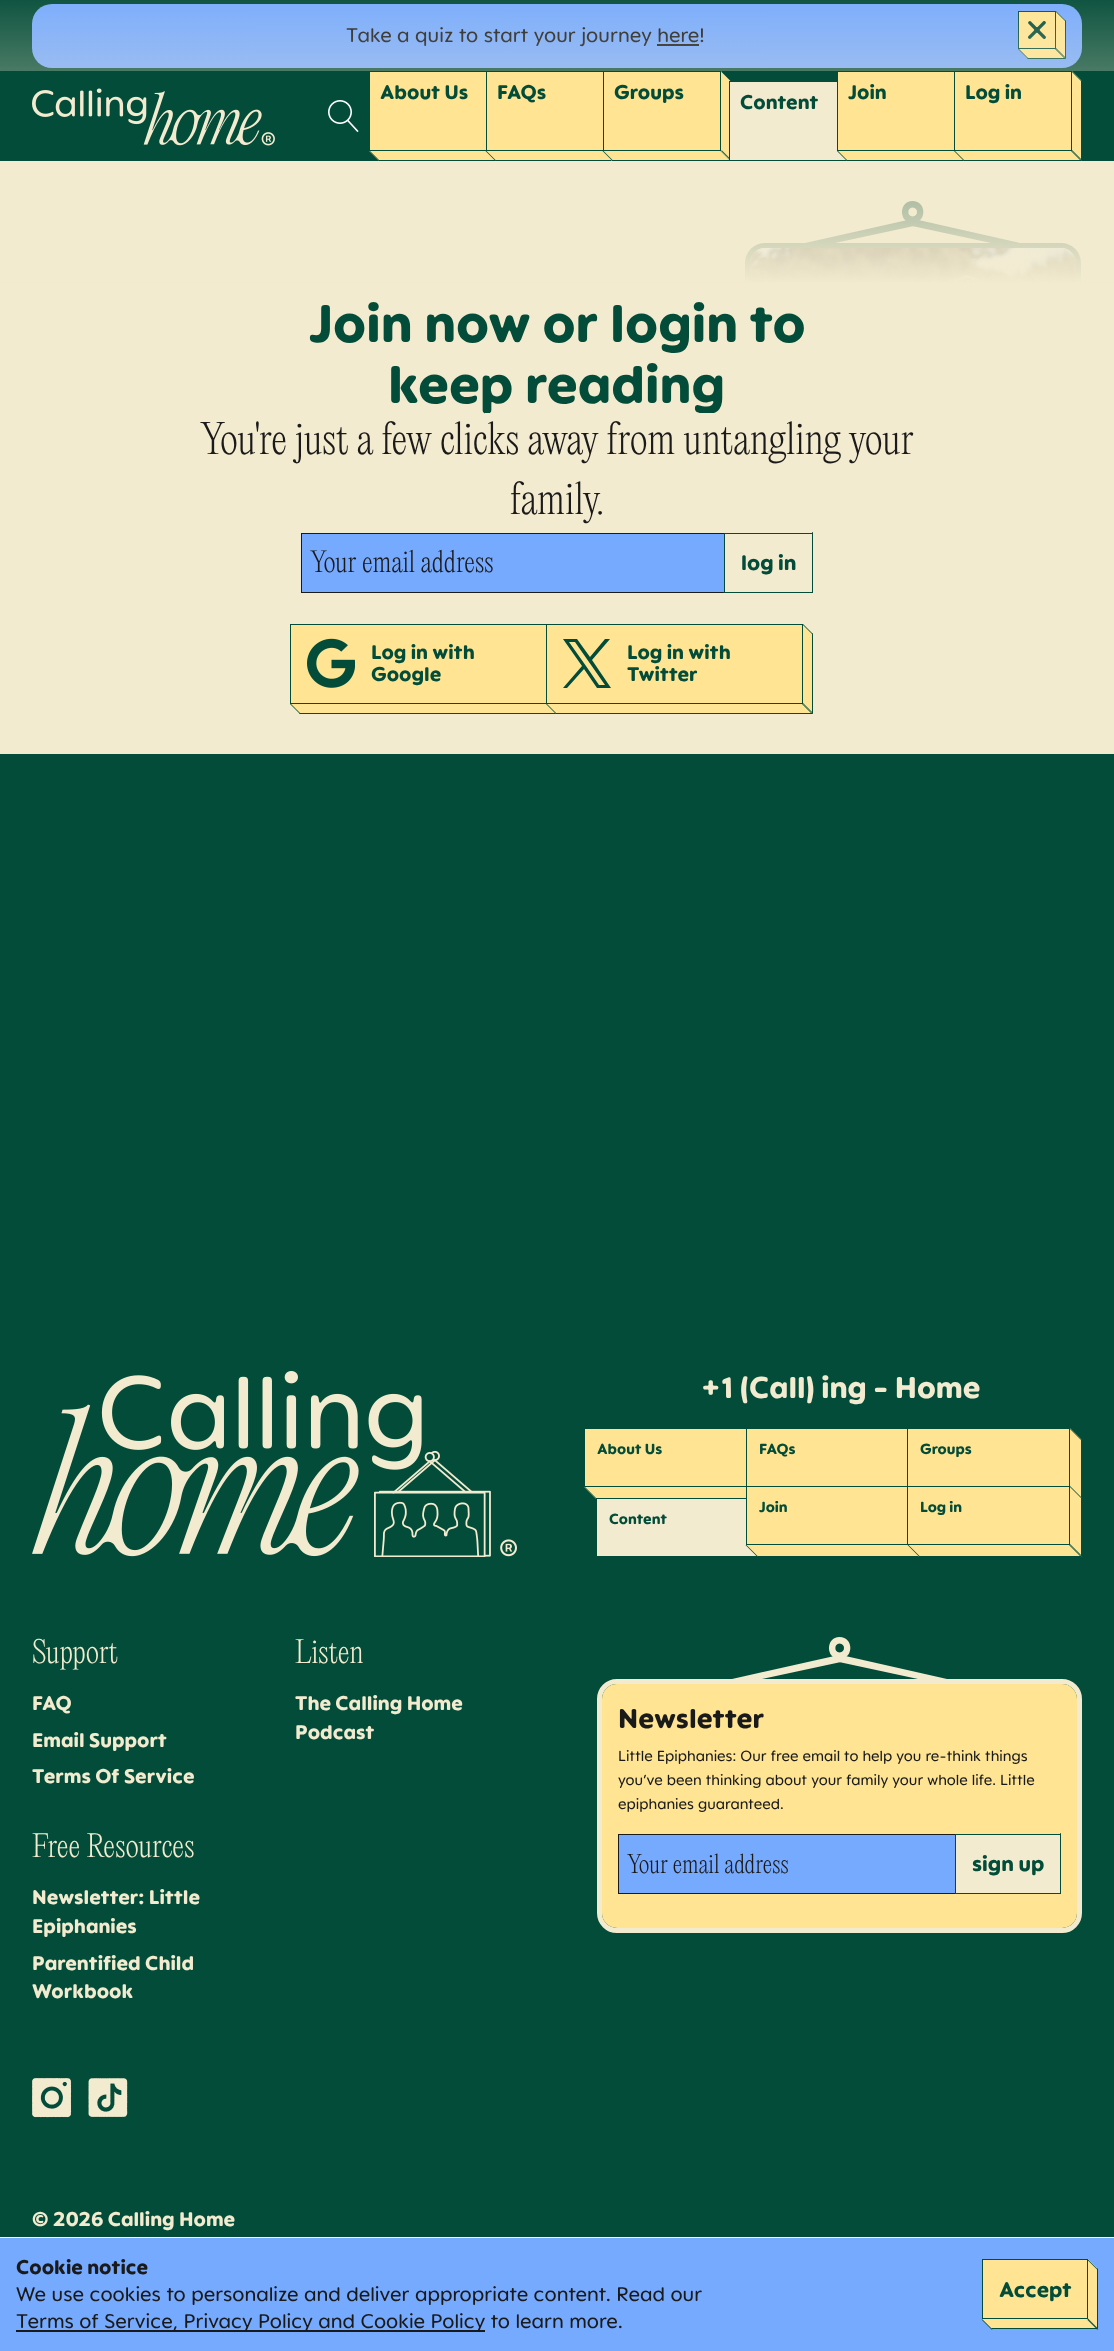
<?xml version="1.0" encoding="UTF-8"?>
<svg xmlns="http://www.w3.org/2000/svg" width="1114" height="2351">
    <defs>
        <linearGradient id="g1" gradientUnits="userSpaceOnUse" x1="557" y1="-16" x2="557" y2="284"><stop offset="0" stop-color="#F3EBCF" stop-opacity="0"/><stop offset="1" stop-color="#F3EBCF"/></linearGradient>
    </defs>
    <rect width="100%" height="100%" fill="#034C39"/>
    <rect x="32" y="4" width="1050" height="64" rx="20" fill="#76AAFF"/>
    <text x="346" y="42" font-family="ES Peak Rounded" font-size="21.65" fill="#1A1A1A">Take a quiz to start your journey here!</text>
    <rect x="657" y="44" width="42" height="2" fill="#1A1A1A"/>
    <rect x="1018.5" y="11.5" width="37" height="37" fill="#FFE593" stroke="#034C39"/>
    <image x="1028" y="21" width="18" height="18" href="img_01.png"/>
    <path d="M 1018 49 H 1056 L 1066 59 H 1028 Z" fill="#FFE593"/>
    <path d="M 1055 49 H 1056 L 1066 59 H 1065 Z" fill="#034C39"/>
    <path d="M 1027 58 H 1065 L 1066 59 H 1028 Z" fill="#034C39"/>
    <path d="M 1056 11 L 1066 21 V 59 L 1056 49 Z" fill="#FFE593"/>
    <path d="M 1056 11 L 1066 21 V 22 L 1056 12 Z" fill="#034C39"/>
    <path d="M 1065 20 L 1066 21 V 59 L 1065 58 Z" fill="#034C39"/>
    <path d="M 1056 48 L 1066 58 V 59 L 1056 49 Z" fill="#034C39"/>
    <path d="M 1018 49 H 1019 L 1029 59 H 1028 Z" fill="#034C39"/>
    <rect x="0" y="161" width="1114" height="121" fill="#F3EBCF"/>
    <path d="M 914 226 C 918 225 916 219 912 219 L 805 243 H 835 Z" fill="#034C39"/>
    <path d="M 914 219 C 912 219 910 220 910 222 C 910 223 911 225 912 226 L 991 243 H 1020 Z" fill="#034C39"/>
    <path d="M 912.5 223 C 898.5 223 898.5 201 912.5 201 C 927 201 927 223 912.5 223 Z M 912.5 207.5 C 907 207.5 907 216.5 912.5 216.5 C 918.5 216.5 918.5 207.5 912.5 207.5 Z" fill="#034C39"/>
    <rect x="747.5" y="245.5" width="331" height="223" rx="17.5" fill="none" stroke="#034C39" stroke-width="5"/>
    <image x="750" y="248" width="326" height="34" href="img_04.png"/>
    <rect x="0" y="0" width="1114" height="284" fill="url(#g1)"/>
    <rect x="0" y="71" width="1114" height="90" fill="#034C39"/>
    <image x="32" y="88" width="243" height="58" href="img_02.png"/>
    <image x="328" y="100" width="31" height="32" href="img_03.png"/>
    <rect x="370" y="72" width="116" height="78" fill="#FFE593"/>
    <text x="380" y="99" font-family="ES Peak Rounded" font-size="21.65" font-weight="800" fill="#034C39">About Us</text>
    <path d="M 369 151 H 488 L 498 161 H 379 Z" fill="#FFE593"/>
    <path d="M 378 160 H 497 L 498 161 H 379 Z" fill="#034C39"/>
    <path d="M 369 151 H 370 L 380 161 H 379 Z" fill="#034C39"/>
    <rect x="487" y="72" width="116" height="78" fill="#FFE593"/>
    <text x="497" y="99" font-family="ES Peak Rounded" font-size="21.65" font-weight="800" fill="#034C39">FAQs</text>
    <path d="M 486 151 H 604 L 614 161 H 496 Z" fill="#FFE593"/>
    <path d="M 495 160 H 614 V 161 H 496 Z" fill="#034C39"/>
    <path d="M 485.5 151 H 486.5 L 496.5 161 H 495.5 Z" fill="#034C39"/>
    <rect x="604" y="72" width="116" height="78" fill="#FFE593"/>
    <text x="614" y="99" font-family="ES Peak Rounded" font-size="21.65" font-weight="800" fill="#034C39">Groups</text>
    <path d="M 602 151 H 721 L 731 161 H 612 Z" fill="#FFE593"/>
    <path d="M 720.5 151 H 721.5 L 731.5 161 H 730.5 Z" fill="#034C39"/>
    <path d="M 612 160 H 730 L 731 161 H 612 Z" fill="#034C39"/>
    <path d="M 721 71 L 731 81 V 161 L 721 151 Z" fill="#FFE593"/>
    <path d="M 721.5 71 L 731.5 81 V 82 L 721.5 72 Z" fill="#034C39"/>
    <path d="M 730 80 L 731 81 V 161 L 730 160 Z" fill="#034C39"/>
    <path d="M 721.5 150 L 731.5 160 V 161 L 721.5 151 Z" fill="#034C39"/>
    <path d="M 602.5 151 H 603.5 L 613.5 161 H 612.5 Z" fill="#034C39"/>
    <rect x="730" y="82" width="116" height="78" fill="#F3EBCF"/>
    <rect x="729.5" y="81.5" width="118" height="79" fill="none" stroke="#034C39"/>
    <text x="740" y="109" font-family="ES Peak Rounded" font-size="21.65" font-weight="800" fill="#034C39">Content</text>
    <rect x="837.5" y="71.5" width="117" height="79" fill="#FFE593" stroke="#034C39"/>
    <text x="848" y="99" font-family="ES Peak Rounded" font-size="21.65" font-weight="800" fill="#034C39">Join</text>
    <path d="M 837 151 H 955 L 965 161 H 847 Z" fill="#FFE593"/>
    <path d="M 846 160 H 964 L 965 161 H 847 Z" fill="#034C39"/>
    <path d="M 837 151 H 838 L 848 161 H 847 Z" fill="#034C39"/>
    <rect x="955" y="72" width="116" height="78" fill="#FFE593"/>
    <text x="965" y="99" font-family="ES Peak Rounded" font-size="21.65" font-weight="800" fill="#034C39">Log in</text>
    <path d="M 954 151 H 1072 L 1082 161 H 964 Z" fill="#FFE593"/>
    <path d="M 1071 151 H 1072 L 1082 161 H 1081 Z" fill="#034C39"/>
    <path d="M 963 160 H 1081 L 1082 161 H 964 Z" fill="#034C39"/>
    <path d="M 1072 71 L 1082 81 V 161 L 1072 151 Z" fill="#FFE593"/>
    <path d="M 1072 71 L 1082 81 V 82 L 1072 72 Z" fill="#034C39"/>
    <path d="M 1081 80 L 1082 81 V 161 L 1081 160 Z" fill="#034C39"/>
    <path d="M 1072 150 L 1082 160 V 161 L 1072 151 Z" fill="#034C39"/>
    <path d="M 954 151 H 955 L 965 161 H 964 Z" fill="#034C39"/>
    <rect x="0" y="714" width="1114" height="40" fill="#F3EBCF"/>
    <rect x="0" y="284" width="1114" height="430" fill="#F3EBCF"/>
    <text x="309" y="342" font-family="ES Peak Rounded" font-size="57.9" font-weight="800" fill="#034C39">Join now or login to</text>
    <text x="388" y="403" font-family="ES Peak Rounded" font-size="57.9" font-weight="800" fill="#034C39">keep reading</text>
    <rect x="485" y="413" width="230" height="2" fill="#F3EBCF"/>
    <text x="200" y="454" font-family="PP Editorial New" font-size="40" font-weight="200" fill="#1A1A1A">You're just a few clicks away from untangling your</text>
    <text x="510" y="514" font-family="PP Editorial New" font-size="40" font-weight="200" fill="#1A1A1A">family.</text>
    <rect x="301.5" y="533.5" width="423" height="59" fill="#76AAFF" stroke="#1A1A1A"/>
    <text x="310" y="572" font-family="PP Editorial New" font-size="27" font-weight="200" fill="#1A1A1A">Your email address</text>
    <path d="M 812 532 L 813 533 V 534 L 812 533 Z" fill="#034C39"/>
    <path d="M 723 592 H 812 L 813 593 H 724 Z" fill="#034C39"/>
    <path d="M 812 532 L 813 533 V 593 L 812 592 Z" fill="#034C39"/>
    <rect x="724.5" y="533.5" width="88" height="59" fill="none" stroke="#034C39"/>
    <text x="741" y="570" font-family="ES Peak Rounded" font-size="23" font-weight="800" fill="#034C39">log in</text>
    <rect x="290.5" y="624.5" width="256" height="79" fill="#FFE593" stroke="#034C39"/>
    <image x="307" y="638" width="48" height="50" href="img_05.png"/>
    <text font-family="ES Peak Rounded" font-size="21.65" font-weight="800" fill="#034C39">
        <tspan x="371" y="659">Log in with</tspan>
        <tspan x="371" y="681">Google</tspan>
    </text>
    <path d="M 290 704 H 547 L 557 714 H 300 Z" fill="#FFE593"/>
    <path d="M 299 713 H 556 L 557 714 H 300 Z" fill="#034C39"/>
    <path d="M 290 704 H 291 L 301 714 H 300 Z" fill="#034C39"/>
    <rect x="546.5" y="624.5" width="256" height="79" fill="#FFE593" stroke="#034C39"/>
    <path d="M 592 660 L 610 639 H 605 L 590 657 L 577 639 H 563 L 582 666 L 563 688 H 567 L 584 669 L 597 688 H 611 Z M 586 666 L 569 642 H 575 L 605 685 H 599 Z" fill="#034C39"/>
    <text font-family="ES Peak Rounded" font-size="21.65" font-weight="800" fill="#034C39">
        <tspan x="627" y="659">Log in with</tspan>
        <tspan x="627" y="681">Twitter</tspan>
    </text>
    <path d="M 546 704 H 803 L 813 714 H 556 Z" fill="#FFE593"/>
    <path d="M 802 704 H 803 L 813 714 H 812 Z" fill="#034C39"/>
    <path d="M 555 713 H 812 L 813 714 H 556 Z" fill="#034C39"/>
    <path d="M 803 624 L 813 634 V 714 L 803 704 Z" fill="#FFE593"/>
    <path d="M 803 624 L 813 634 V 635 L 803 625 Z" fill="#034C39"/>
    <path d="M 812 633 L 813 634 V 714 L 812 713 Z" fill="#034C39"/>
    <path d="M 803 703 L 813 713 V 714 L 803 704 Z" fill="#034C39"/>
    <path d="M 546 704 H 547 L 557 714 H 556 Z" fill="#034C39"/>
    <image x="32" y="1371" width="485" height="186" href="img_06.png"/>
    <image x="374" y="1452" width="112" height="105" href="img_07.png"/>
    <text x="700" y="1398" font-family="ES Peak Rounded" font-size="33" font-weight="800" fill="#F3EBCF">+1 (Call) ing - Home</text>
    <rect x="585" y="1429" width="161" height="57" fill="#FFE593"/>
    <text x="597" y="1454" font-family="ES Peak Rounded" font-size="16" font-weight="800" fill="#034C39">About Us</text>
    <path d="M 584 1487 H 747 L 759 1499 H 596 Z" fill="#FFE593"/>
    <path d="M 584 1487 H 585 L 597 1499 H 596 Z" fill="#034C39"/>
    <rect x="747" y="1429" width="160" height="57" fill="#FFE593"/>
    <text x="759" y="1454" font-family="ES Peak Rounded" font-size="16" font-weight="800" fill="#034C39">FAQs</text>
    <rect x="908" y="1429" width="161" height="57" fill="#FFE593"/>
    <text x="920" y="1454" font-family="ES Peak Rounded" font-size="16" font-weight="800" fill="#034C39">Groups</text>
    <path d="M 1070 1428 L 1082 1440 V 1499 L 1070 1487 Z" fill="#FFE593"/>
    <path d="M 1070 1428 L 1082 1440 V 1441 L 1070 1429 Z" fill="#034C39"/>
    <path d="M 1081 1439 L 1082 1440 V 1499 L 1081 1498 Z" fill="#034C39"/>
    <rect x="597" y="1499" width="160" height="57" fill="#F3EBCF"/>
    <path d="M 758 1498 L 759 1499 V 1558 L 758 1557 Z" fill="#034C39"/>
    <rect x="596.5" y="1498.5" width="162" height="58" fill="none" stroke="#034C39"/>
    <rect x="746.5" y="1486.5" width="161" height="58" fill="#FFE593" stroke="#034C39"/>
    <text x="759" y="1512" font-family="ES Peak Rounded" font-size="16" font-weight="800" fill="#034C39">Join</text>
    <path d="M 746 1545 H 908 L 920 1557 H 758 Z" fill="#FFE593"/>
    <path d="M 757 1556 H 919 L 920 1557 H 758 Z" fill="#034C39"/>
    <path d="M 745.5 1545 H 746.5 L 758.5 1557 H 757.5 Z" fill="#034C39"/>
    <rect x="908" y="1487" width="161" height="57" fill="#FFE593"/>
    <text x="920" y="1512" font-family="ES Peak Rounded" font-size="16" font-weight="800" fill="#034C39">Log in</text>
    <path d="M 907 1545 H 1070 L 1082 1557 H 919 Z" fill="#FFE593"/>
    <path d="M 1069 1545 H 1070 L 1082 1557 H 1081 Z" fill="#034C39"/>
    <path d="M 918 1556 H 1081 L 1082 1557 H 919 Z" fill="#034C39"/>
    <path d="M 1070 1486 L 1082 1498 V 1557 L 1070 1545 Z" fill="#FFE593"/>
    <path d="M 1070 1486 L 1082 1498 V 1499 L 1070 1487 Z" fill="#034C39"/>
    <path d="M 1081 1497 L 1082 1498 V 1557 L 1081 1556 Z" fill="#034C39"/>
    <path d="M 1070 1544 L 1082 1556 V 1557 L 1070 1545 Z" fill="#034C39"/>
    <path d="M 907.5 1545 H 908.5 L 920.5 1557 H 919.5 Z" fill="#034C39"/>
    <text x="609" y="1524" font-family="ES Peak Rounded" font-size="16" font-weight="800" fill="#034C39">Content</text>
    <text x="32" y="1663" font-family="PP Editorial New" font-size="29.75" font-weight="200" fill="#F3EBCF">Support</text>
    <text font-family="ES Peak Rounded" font-size="21.65" font-weight="800" fill="#F3EBCF">
        <tspan x="32" y="1710">FAQ</tspan>
        <tspan x="32" y="1747">Email Support</tspan>
        <tspan x="32" y="1783">Terms Of Service</tspan>
    </text>
    <text x="295" y="1663" font-family="PP Editorial New" font-size="29.75" font-weight="200" fill="#F3EBCF">Listen</text>
    <text font-family="ES Peak Rounded" font-size="21.65" font-weight="800" fill="#F3EBCF">
        <tspan x="295" y="1710">The Calling Home</tspan>
        <tspan x="295" y="1739">Podcast</tspan>
    </text>
    <text x="32" y="1857" font-family="PP Editorial New" font-size="29.75" font-weight="200" fill="#F3EBCF">Free Resources</text>
    <text font-family="ES Peak Rounded" font-size="21.65" font-weight="800" fill="#F3EBCF">
        <tspan x="32" y="1904">Newsletter: Little</tspan>
        <tspan x="32" y="1933">Epiphanies</tspan>
        <tspan x="32" y="1970">Parentified Child</tspan>
        <tspan x="32" y="1998">Workbook</tspan>
    </text>
    <image x="32" y="2078" width="40" height="40" href="img_08.png"/>
    <image x="88" y="2078" width="40" height="39" href="img_09.png"/>
    <text x="32" y="2226" font-family="ES Peak Rounded" font-size="21.65" font-weight="800" fill="#F3EBCF">© 2026 Calling Home</text>
    <path d="M 841 1662 C 845 1661 843 1655 839 1655 L 732 1679 H 762 Z" fill="#F3EBCF"/>
    <path d="M 841 1655 C 839 1655 837 1656 837 1658 C 837 1659 838 1661 839 1662 L 918 1679 H 947 Z" fill="#F3EBCF"/>
    <path d="M 839.5 1659 C 825.5 1659 825.5 1637 839.5 1637 C 854 1637 854 1659 839.5 1659 Z M 839.5 1643.5 C 834 1643.5 834 1652.5 839.5 1652.5 C 845.5 1652.5 845.5 1643.5 839.5 1643.5 Z" fill="#F3EBCF"/>
    <rect x="599.5" y="1681.5" width="480" height="249" rx="17.5" fill="none" stroke="#F3EBCF" stroke-width="5"/>
    <rect x="602" y="1684" width="475" height="244" rx="15" fill="#FFE593"/>
    <text x="618" y="1728" font-family="ES Peak Rounded" font-size="29.75" font-weight="800" fill="#1A1A1A">Newsletter</text>
    <text font-family="ES Peak Rounded" font-size="16" fill="#1A1A1A">
        <tspan x="618" y="1761">Little Epiphanies: Our free email to help you re-think things</tspan>
        <tspan x="618" y="1785">you’ve been thinking about your family your whole life. Little</tspan>
        <tspan x="618" y="1809">epiphanies guaranteed.</tspan>
    </text>
    <rect x="618.5" y="1834.5" width="337" height="59" fill="#76AAFF" stroke="#1A1A1A"/>
    <text x="627" y="1873" font-family="PP Editorial New" font-size="23.75" font-weight="200" fill="#1A1A1A">Your email address</text>
    <path d="M 1060 1833 L 1061 1834 V 1835 L 1060 1834 Z" fill="#034C39"/>
    <path d="M 1060 1833 L 1061 1834 V 1894 L 1060 1893 Z" fill="#034C39"/>
    <rect x="955.5" y="1834.5" width="105" height="59" fill="#F3EBCF" stroke="#034C39"/>
    <text x="972" y="1871" font-family="ES Peak Rounded" font-size="23" font-weight="800" fill="#034C39">sign up</text>
    <rect x="0" y="2238" width="1114" height="113" fill="#76AAFF"/>
    <rect x="0" y="2237" width="1114" height="1" fill="#FFFFFF"/>
    <text x="16" y="2274" font-family="ES Peak Rounded" font-size="21.65" font-weight="800" fill="#1A1A1A">Cookie notice</text>
    <text x="16" y="2301" font-family="ES Peak Rounded" font-size="21.65" fill="#1A1A1A">We use cookies to personalize and deliver appropriate content. Read our</text>
    <rect x="16" y="2330" width="469" height="2" fill="#1A1A1A"/>
    <text x="16" y="2328" font-family="ES Peak Rounded" font-size="21.65" fill="#1A1A1A">Terms of Service, Privacy Policy and Cookie Policy to learn more.</text>
    <rect x="982.5" y="2259.5" width="105" height="59" fill="#FFE593" stroke="#034C39"/>
    <text x="999" y="2297" font-family="ES Peak Rounded" font-size="23" font-weight="800" fill="#034C39">Accept</text>
    <path d="M 982 2319 H 1088 L 1098 2329 H 992 Z" fill="#FFE593"/>
    <path d="M 1087 2319.5 H 1088 L 1098 2329.5 H 1097 Z" fill="#034C39"/>
    <path d="M 991 2328 H 1097 L 1098 2329 H 992 Z" fill="#034C39"/>
    <path d="M 1088 2259 L 1098 2269 V 2329 L 1088 2319 Z" fill="#FFE593"/>
    <path d="M 1088 2259.5 L 1098 2269.5 V 2270.5 L 1088 2260.5 Z" fill="#034C39"/>
    <path d="M 1097 2268 L 1098 2269 V 2329 L 1097 2328 Z" fill="#034C39"/>
    <path d="M 1088 2318.5 L 1098 2328.5 V 2329.5 L 1088 2319.5 Z" fill="#034C39"/>
    <path d="M 981.5 2319.5 H 982.5 L 992.5 2329.5 H 991.5 Z" fill="#034C39"/>
</svg>
